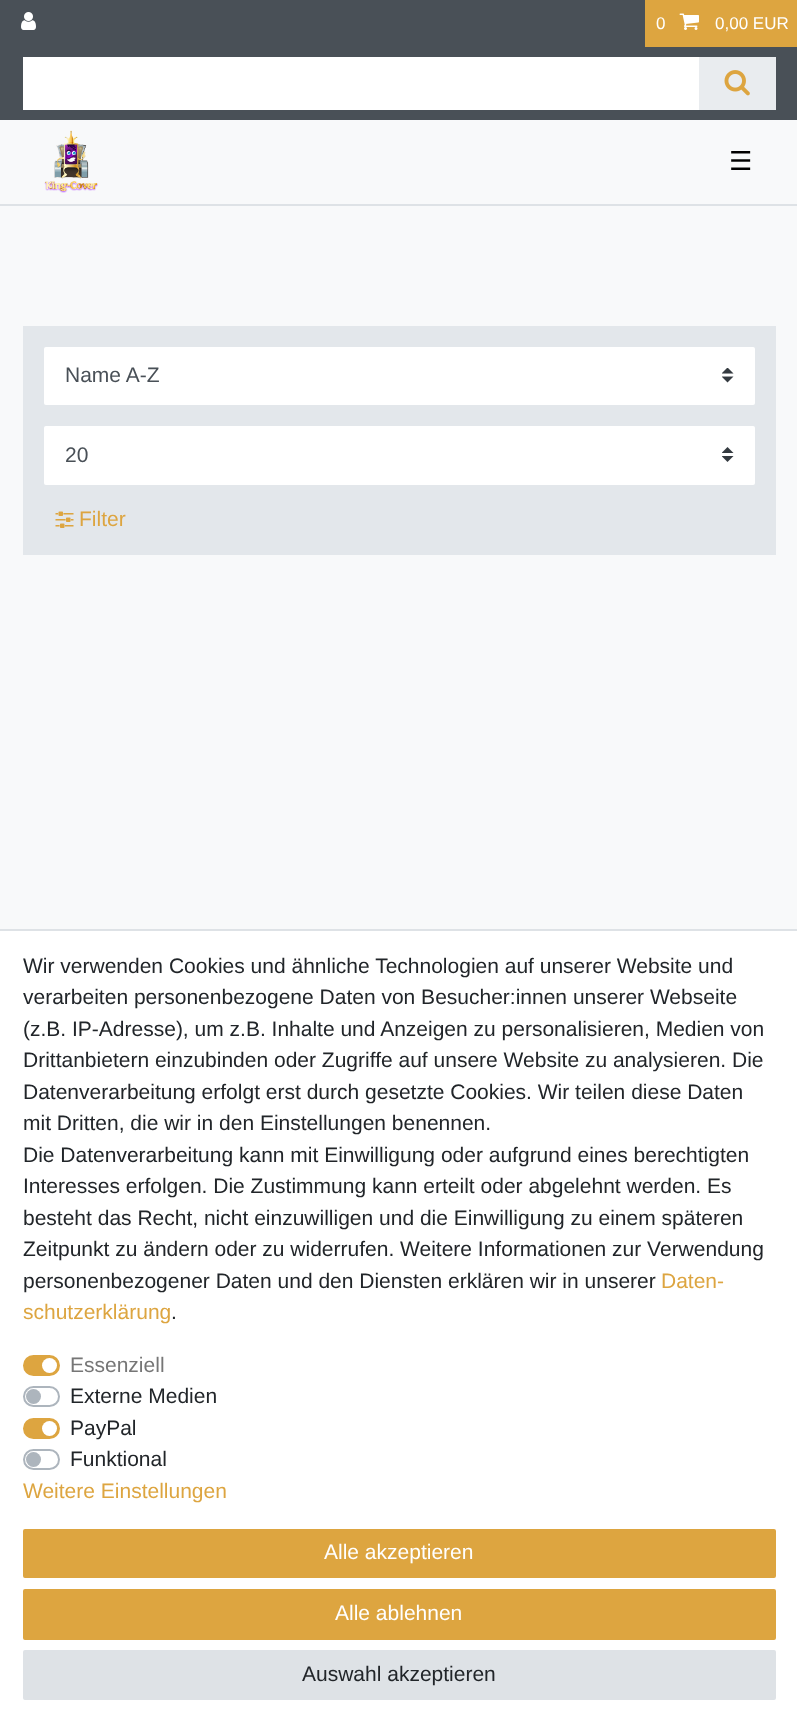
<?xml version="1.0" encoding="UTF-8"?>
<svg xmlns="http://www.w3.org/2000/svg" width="797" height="1730">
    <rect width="100%" height="100%" fill="#F8F9FA"/>
    <rect x="0" y="0" width="797" height="120" fill="#495057"/>
    <image x="21" y="12" width="15" height="18" href="img_01.png"/>
    <rect x="645" y="0" width="152" height="47" fill="#DDA540"/>
    <text x="656" y="29" font-family="Liberation Sans" font-size="17" fill="#FFFFFF">0</text>
    <image x="679" y="13" width="20" height="17" href="img_02.png"/>
    <text x="715" y="29" font-family="Liberation Sans" font-size="17" fill="#FFFFFF">0,00 EUR</text>
    <rect x="23" y="57" width="676" height="53" fill="#FFFFFF"/>
    <rect x="699" y="57" width="77" height="53" fill="#E9ECEF"/>
    <image x="724" y="70" width="26" height="26" href="img_03.png"/>
    <rect x="0" y="204" width="797" height="2" fill="#DEE2E6"/>
    <image x="44" y="130" width="54" height="63" href="img_04.png"/>
    <text x="729" y="170" font-family="DejaVu Sans" font-size="26" fill="#000000">☰</text>
    <rect x="23" y="326" width="753" height="229" fill="#E3E7EB"/>
    <rect x="44" y="347" width="711" height="58" rx="2" fill="#FFFFFF"/>
    <image x="722" y="368" width="12" height="15" href="img_05.png"/>
    <text x="65" y="382" font-family="Liberation Sans" font-size="21" fill="#495057">Name A-Z</text>
    <rect x="44" y="426" width="711" height="59" rx="2" fill="#FFFFFF"/>
    <image x="722" y="447" width="12" height="15" href="img_06.png"/>
    <text x="65" y="462" font-family="Liberation Sans" font-size="21" fill="#495057">20</text>
    <image x="55" y="511" width="19" height="17" href="img_07.png"/>
    <text x="79" y="526" font-family="Liberation Sans" font-size="21" fill="#DDA540">Filter</text>
    <rect x="0" y="931" width="797" height="799" fill="#FFFFFF"/>
    <rect x="0" y="929" width="797" height="2" fill="#DEE2E6"/>
    <text font-family="Liberation Sans" font-size="21" fill="#212529">
        <tspan x="23" y="973">Wir verwenden Cookies und ähnliche Technologien auf unserer Website und</tspan>
        <tspan x="23" y="1004">verarbeiten personenbezogene Daten von Besucher:innen unserer Webseite</tspan>
        <tspan x="23" y="1036">(z.B. IP-Adresse), um z.B. Inhalte und Anzeigen zu personalisieren, Medien von</tspan>
        <tspan x="23" y="1067">Drittanbietern einzubinden oder Zugriffe auf unsere Website zu analysieren. Die</tspan>
        <tspan x="23" y="1099">Datenverarbeitung erfolgt erst durch gesetzte Cookies. Wir teilen diese Daten</tspan>
        <tspan x="23" y="1130">mit Dritten, die wir in den Einstellungen benennen.</tspan>
        <tspan x="23" y="1162">Die Datenverarbeitung kann mit Einwilligung oder aufgrund eines berechtigten</tspan>
        <tspan x="23" y="1193">Interesses erfolgen. Die Zustimmung kann erteilt oder abgelehnt werden. Es</tspan>
        <tspan x="23" y="1225">besteht das Recht, nicht einzuwilligen und die Einwilligung zu einem späteren</tspan>
        <tspan x="23" y="1256">Zeitpunkt zu ändern oder zu widerrufen. Weitere Informationen zur Verwendung</tspan>
        <tspan x="23" y="1288">personenbezogener Daten und den Diensten erklären wir in unserer</tspan>
    </text>
    <text x="661" y="1288" font-family="Liberation Sans" font-size="21" fill="#DDA540">Daten-</text>
    <text x="23" y="1319" font-family="Liberation Sans" font-size="21" fill="#DDA540">schutzerklärung</text>
    <text x="171" y="1319" font-family="Liberation Sans" font-size="21" fill="#212529">.</text>
    <rect x="24" y="1356" width="35" height="19" rx="9.5" fill="#DDA540" stroke="#DDA540" stroke-width="2"/>
    <text x="70" y="1372" font-family="Liberation Sans" font-size="21" fill="#767676">Essenziell</text>
    <circle cx="49.5" cy="1365.5" r="7.5" fill="#FFFFFF"/>
    <rect x="24" y="1387" width="35" height="19" rx="9.5" fill="none" stroke="#ADB5BD" stroke-width="2"/>
    <text x="70" y="1403" font-family="Liberation Sans" font-size="21" fill="#212529">Externe Medien</text>
    <circle cx="33.5" cy="1396.5" r="7.5" fill="#ADB5BD"/>
    <rect x="24" y="1419" width="35" height="19" rx="9.5" fill="#DDA540" stroke="#DDA540" stroke-width="2"/>
    <text x="70" y="1435" font-family="Liberation Sans" font-size="21" fill="#212529">PayPal</text>
    <circle cx="49.5" cy="1428.5" r="7.5" fill="#FFFFFF"/>
    <rect x="24" y="1450" width="35" height="19" rx="9.5" fill="none" stroke="#ADB5BD" stroke-width="2"/>
    <text x="70" y="1466" font-family="Liberation Sans" font-size="21" fill="#212529">Funktional</text>
    <circle cx="33.5" cy="1459.5" r="7.5" fill="#ADB5BD"/>
    <text x="23" y="1498" font-family="Liberation Sans" font-size="21" fill="#DDA540">Weitere Einstellungen</text>
    <rect x="24" y="1530" width="751" height="47" rx="1" fill="#DDA540" stroke="#DDA540" stroke-width="2"/>
    <text x="324" y="1559" font-family="Liberation Sans" font-size="21" fill="#FFFFFF">Alle akzeptieren</text>
    <rect x="24" y="1590" width="751" height="49" rx="1" fill="#DDA540" stroke="#DDA540" stroke-width="2"/>
    <text x="335" y="1620" font-family="Liberation Sans" font-size="21" fill="#FFFFFF">Alle ablehnen</text>
    <rect x="24" y="1651" width="751" height="48" rx="1" fill="#DEE2E6" stroke="#DEE2E6" stroke-width="2"/>
    <text x="302" y="1681" font-family="Liberation Sans" font-size="21" fill="#212529">Auswahl akzeptieren</text>
</svg>
